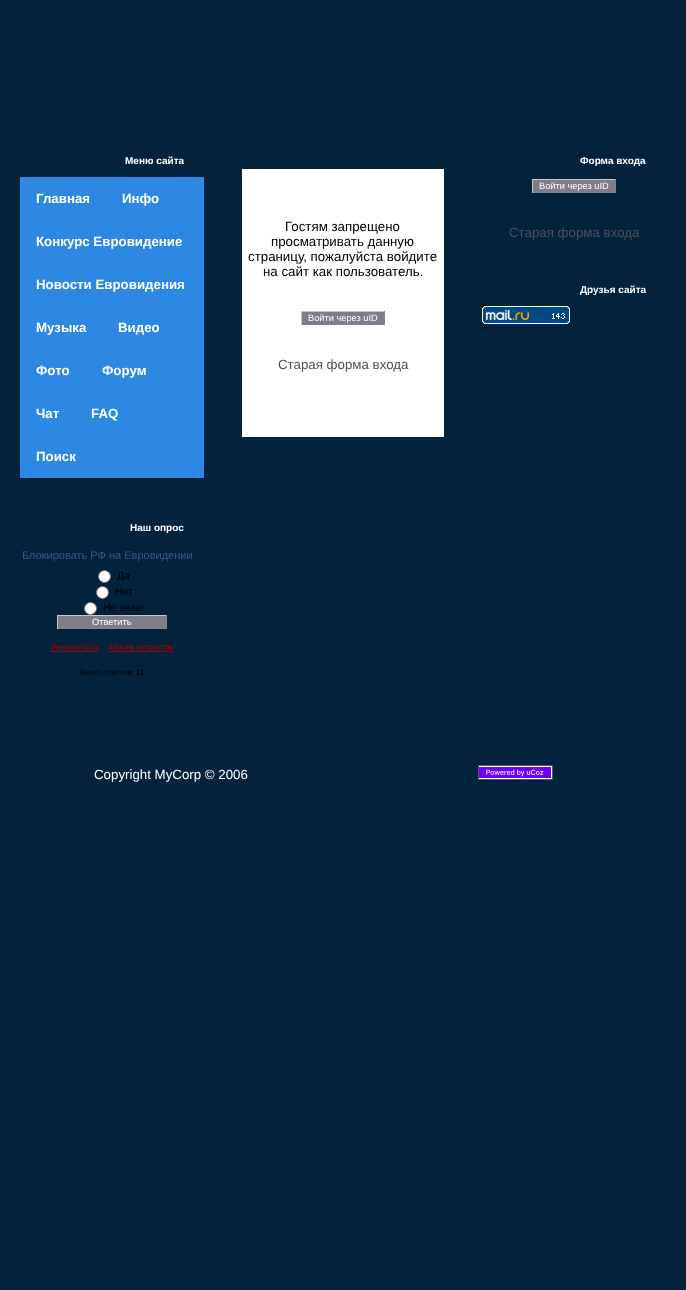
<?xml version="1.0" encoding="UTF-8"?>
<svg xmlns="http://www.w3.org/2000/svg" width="686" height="1290">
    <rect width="100%" height="100%" fill="#03223C"/>
    <text x="125" y="164" font-family="Liberation Sans" font-size="10" font-weight="700" fill="#FFFFFF">Меню сайта</text>
    <rect x="20" y="177" width="184" height="301" fill="#2D88E3"/>
    <text x="36" y="203" font-family="Liberation Sans" font-size="13.3" font-weight="700" fill="#FFFFFF">Главная</text>
    <text x="122" y="203" font-family="Liberation Sans" font-size="13.3" font-weight="700" fill="#FFFFFF">Инфо</text>
    <text x="36" y="246" font-family="Liberation Sans" font-size="13.3" font-weight="700" fill="#FFFFFF">Конкурс Евровидение</text>
    <text x="36" y="289" font-family="Liberation Sans" font-size="13.3" font-weight="700" fill="#FFFFFF">Новости Евровидения</text>
    <text x="36" y="332" font-family="Liberation Sans" font-size="13.3" font-weight="700" fill="#FFFFFF">Музыка</text>
    <text x="118" y="332" font-family="Liberation Sans" font-size="13.3" font-weight="700" fill="#FFFFFF">Видео</text>
    <text x="36" y="375" font-family="Liberation Sans" font-size="13.3" font-weight="700" fill="#FFFFFF">Фото</text>
    <text x="102" y="375" font-family="Liberation Sans" font-size="13.3" font-weight="700" fill="#FFFFFF">Форум</text>
    <text x="36" y="418" font-family="Liberation Sans" font-size="13.3" font-weight="700" fill="#FFFFFF">Чат</text>
    <text x="91" y="418" font-family="Liberation Sans" font-size="13.3" font-weight="700" fill="#FFFFFF">FAQ</text>
    <text x="36" y="461" font-family="Liberation Sans" font-size="13.3" font-weight="700" fill="#FFFFFF">Поиск</text>
    <text x="130" y="531" font-family="Liberation Sans" font-size="10" font-weight="700" fill="#FFFFFF">Наш опрос</text>
    <text x="22" y="559" font-family="Liberation Sans" font-size="11" fill="#445588">Блокировать РФ на Евровидении</text>
    <circle cx="104.5" cy="576.5" r="6" fill="#FFFFFF" stroke="#767676"/>
    <text x="117" y="579" font-family="Liberation Sans" font-size="10.5" fill="#000000">Да</text>
    <circle cx="102.5" cy="592.5" r="6" fill="#FFFFFF" stroke="#767676"/>
    <text x="115" y="595" font-family="Liberation Sans" font-size="10.5" fill="#000000">Нет</text>
    <circle cx="90.5" cy="608.5" r="6" fill="#FFFFFF" stroke="#767676"/>
    <text x="103" y="611" font-family="Liberation Sans" font-size="10.5" fill="#000000">Не знаю</text>
    <rect x="58" y="616" width="108" height="12" fill="#807D8A"/>
    <rect x="57" y="615" width="110" height="1" fill="#C8C6CB"/>
    <rect x="166" y="615" width="1" height="14" fill="#858487"/>
    <rect x="57" y="628" width="110" height="1" fill="#858487"/>
    <rect x="57" y="615" width="1" height="14" fill="#C8C6CB"/>
    <text x="92" y="625" font-family="Liberation Sans" font-size="9.25" fill="#FFFFFF">Ответить</text>
    <rect x="51" y="651" width="48" height="1" fill="#A70003"/>
    <text x="51" y="650" font-family="Fira Sans" font-size="9.25" fill="#A70003">Результаты</text>
    <text x="102" y="650" font-family="Fira Sans" font-size="10.5" fill="#000000">·</text>
    <rect x="108" y="651" width="65" height="1" fill="#A70003"/>
    <text x="108" y="650" font-family="Fira Sans" font-size="9.25" fill="#A70003">Архив опросов</text>
    <text x="80" y="675" font-family="Liberation Sans" font-size="8" fill="#000000">Всего ответов:</text>
    <text x="136" y="675" font-family="Liberation Sans" font-size="8" font-weight="700" fill="#000000">11</text>
    <rect x="242" y="169" width="202" height="268" fill="#FFFFFF"/>
    <text x="285" y="231" font-family="Liberation Sans" font-size="13.3" fill="#000000">Гостям запрещено</text>
    <text x="271" y="246" font-family="Liberation Sans" font-size="13.3" fill="#000000">просматривать данную</text>
    <text x="248" y="261" font-family="Liberation Sans" font-size="13.3" fill="#000000">страницу, пожалуйста войдите</text>
    <text x="263" y="276" font-family="Liberation Sans" font-size="13.3" fill="#000000">на сайт как пользователь.</text>
    <rect x="302" y="312" width="82" height="12" fill="#807D8A"/>
    <rect x="301" y="311" width="84" height="1" fill="#C8C6CB"/>
    <rect x="384" y="311" width="1" height="14" fill="#858487"/>
    <rect x="301" y="324" width="84" height="1" fill="#858487"/>
    <rect x="301" y="311" width="1" height="14" fill="#C8C6CB"/>
    <text x="308" y="321" font-family="Liberation Sans" font-size="9.25" fill="#FFFFFF">Войти через uID</text>
    <text x="278" y="369" font-family="Liberation Sans" font-size="13.3" fill="#504E59">Старая форма входа</text>
    <text x="580" y="164" font-family="Liberation Sans" font-size="10" font-weight="700" fill="#FFFFFF">Форма входа</text>
    <rect x="533" y="180" width="82" height="12" fill="#807D8A"/>
    <rect x="532" y="179" width="84" height="1" fill="#C8C6CB"/>
    <rect x="615" y="179" width="1" height="14" fill="#858487"/>
    <rect x="532" y="192" width="84" height="1" fill="#858487"/>
    <rect x="532" y="179" width="1" height="14" fill="#C8C6CB"/>
    <text x="539" y="189" font-family="Liberation Sans" font-size="9.25" fill="#FFFFFF">Войти через uID</text>
    <text x="509" y="237" font-family="Liberation Sans" font-size="13.3" fill="#504E59">Старая форма входа</text>
    <text x="580" y="293" font-family="Liberation Sans" font-size="10" font-weight="700" fill="#FFFFFF">Друзья сайта</text>
    <image x="482" y="306" width="88" height="18" href="img_01.png"/>
    <text x="94" y="779" font-family="Liberation Sans" font-size="13.3" fill="#FFFFFF">Copyright MyCorp © 2006</text>
    <image x="478" y="765" width="75" height="15" href="img_02.png"/>
</svg>
